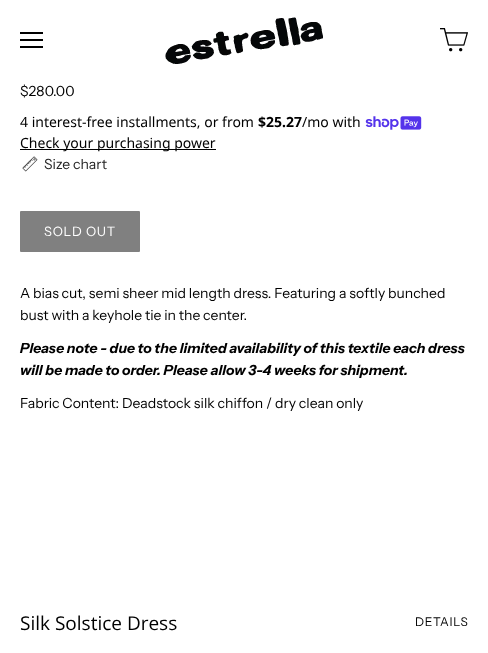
<?xml version="1.0" encoding="UTF-8"?>
<svg xmlns="http://www.w3.org/2000/svg" width="488" height="653">
    <rect width="100%" height="100%" fill="#FFFFFF"/>
    <rect x="20" y="32" width="23" height="2" fill="#000000"/>
    <rect x="20" y="39" width="23" height="2" fill="#000000"/>
    <rect x="20" y="46" width="23" height="2" fill="#000000"/>
    <image x="165" y="17" width="158" height="47" href="img_01.png"/>
    <image x="440" y="28" width="28" height="24" href="img_02.png"/>
    <text x="20" y="96" font-family="Instrument Sans" font-size="14" fill="#000000">$280.00</text>
    <text x="20" y="127" font-family="Noto Sans" font-size="14" fill="#000000">4 interest-free installments, or from</text>
    <text x="258" y="127" font-family="Noto Sans" font-size="14" font-weight="700" fill="#000000">$25.27</text>
    <text x="302" y="127" font-family="Noto Sans" font-size="14" fill="#000000">/mo with</text>
    <image x="365" y="116" width="57" height="14" href="img_03.png"/>
    <rect x="20" y="149" width="196" height="1" fill="#000000"/>
    <text x="20" y="148" font-family="Noto Sans" font-size="14" fill="#000000">Check your purchasing power</text>
    <image x="22" y="156" width="16" height="16" href="img_04.png"/>
    <text x="44" y="169" font-family="Instrument Sans" font-size="14" fill="#232323">Size chart</text>
    <rect x="20" y="211" width="120" height="41" rx="1" fill="#808080"/>
    <text x="44" y="236" font-family="Instrument Sans" font-size="13" letter-spacing="0.75" fill="#FFFFFF">SOLD OUT</text>
    <text font-family="Instrument Sans" font-size="14" fill="#000000">
        <tspan x="20" y="298">A bias cut, semi sheer mid length dress. Featuring a softly bunched</tspan>
        <tspan x="20" y="320">bust with a keyhole tie in the center.</tspan>
    </text>
    <text font-family="Instrument Sans" font-size="14" font-weight="700" font-style="italic" fill="#000000">
        <tspan x="20" y="353">Please note - due to the limited availability of this textile each dress</tspan>
        <tspan x="20" y="375">will be made to order. Please allow 3-4 weeks for shipment.</tspan>
    </text>
    <text x="20" y="408" font-family="Instrument Sans" font-size="14" fill="#000000">Fabric Content: Deadstock silk chiffon / dry clean only</text>
    <text x="20" y="630" font-family="Open Sans" font-size="19" fill="#000000">Silk Solstice Dress</text>
    <text x="415" y="626" font-family="Instrument Sans" font-size="12" letter-spacing="0.75" fill="#000000">DETAILS</text>
</svg>
